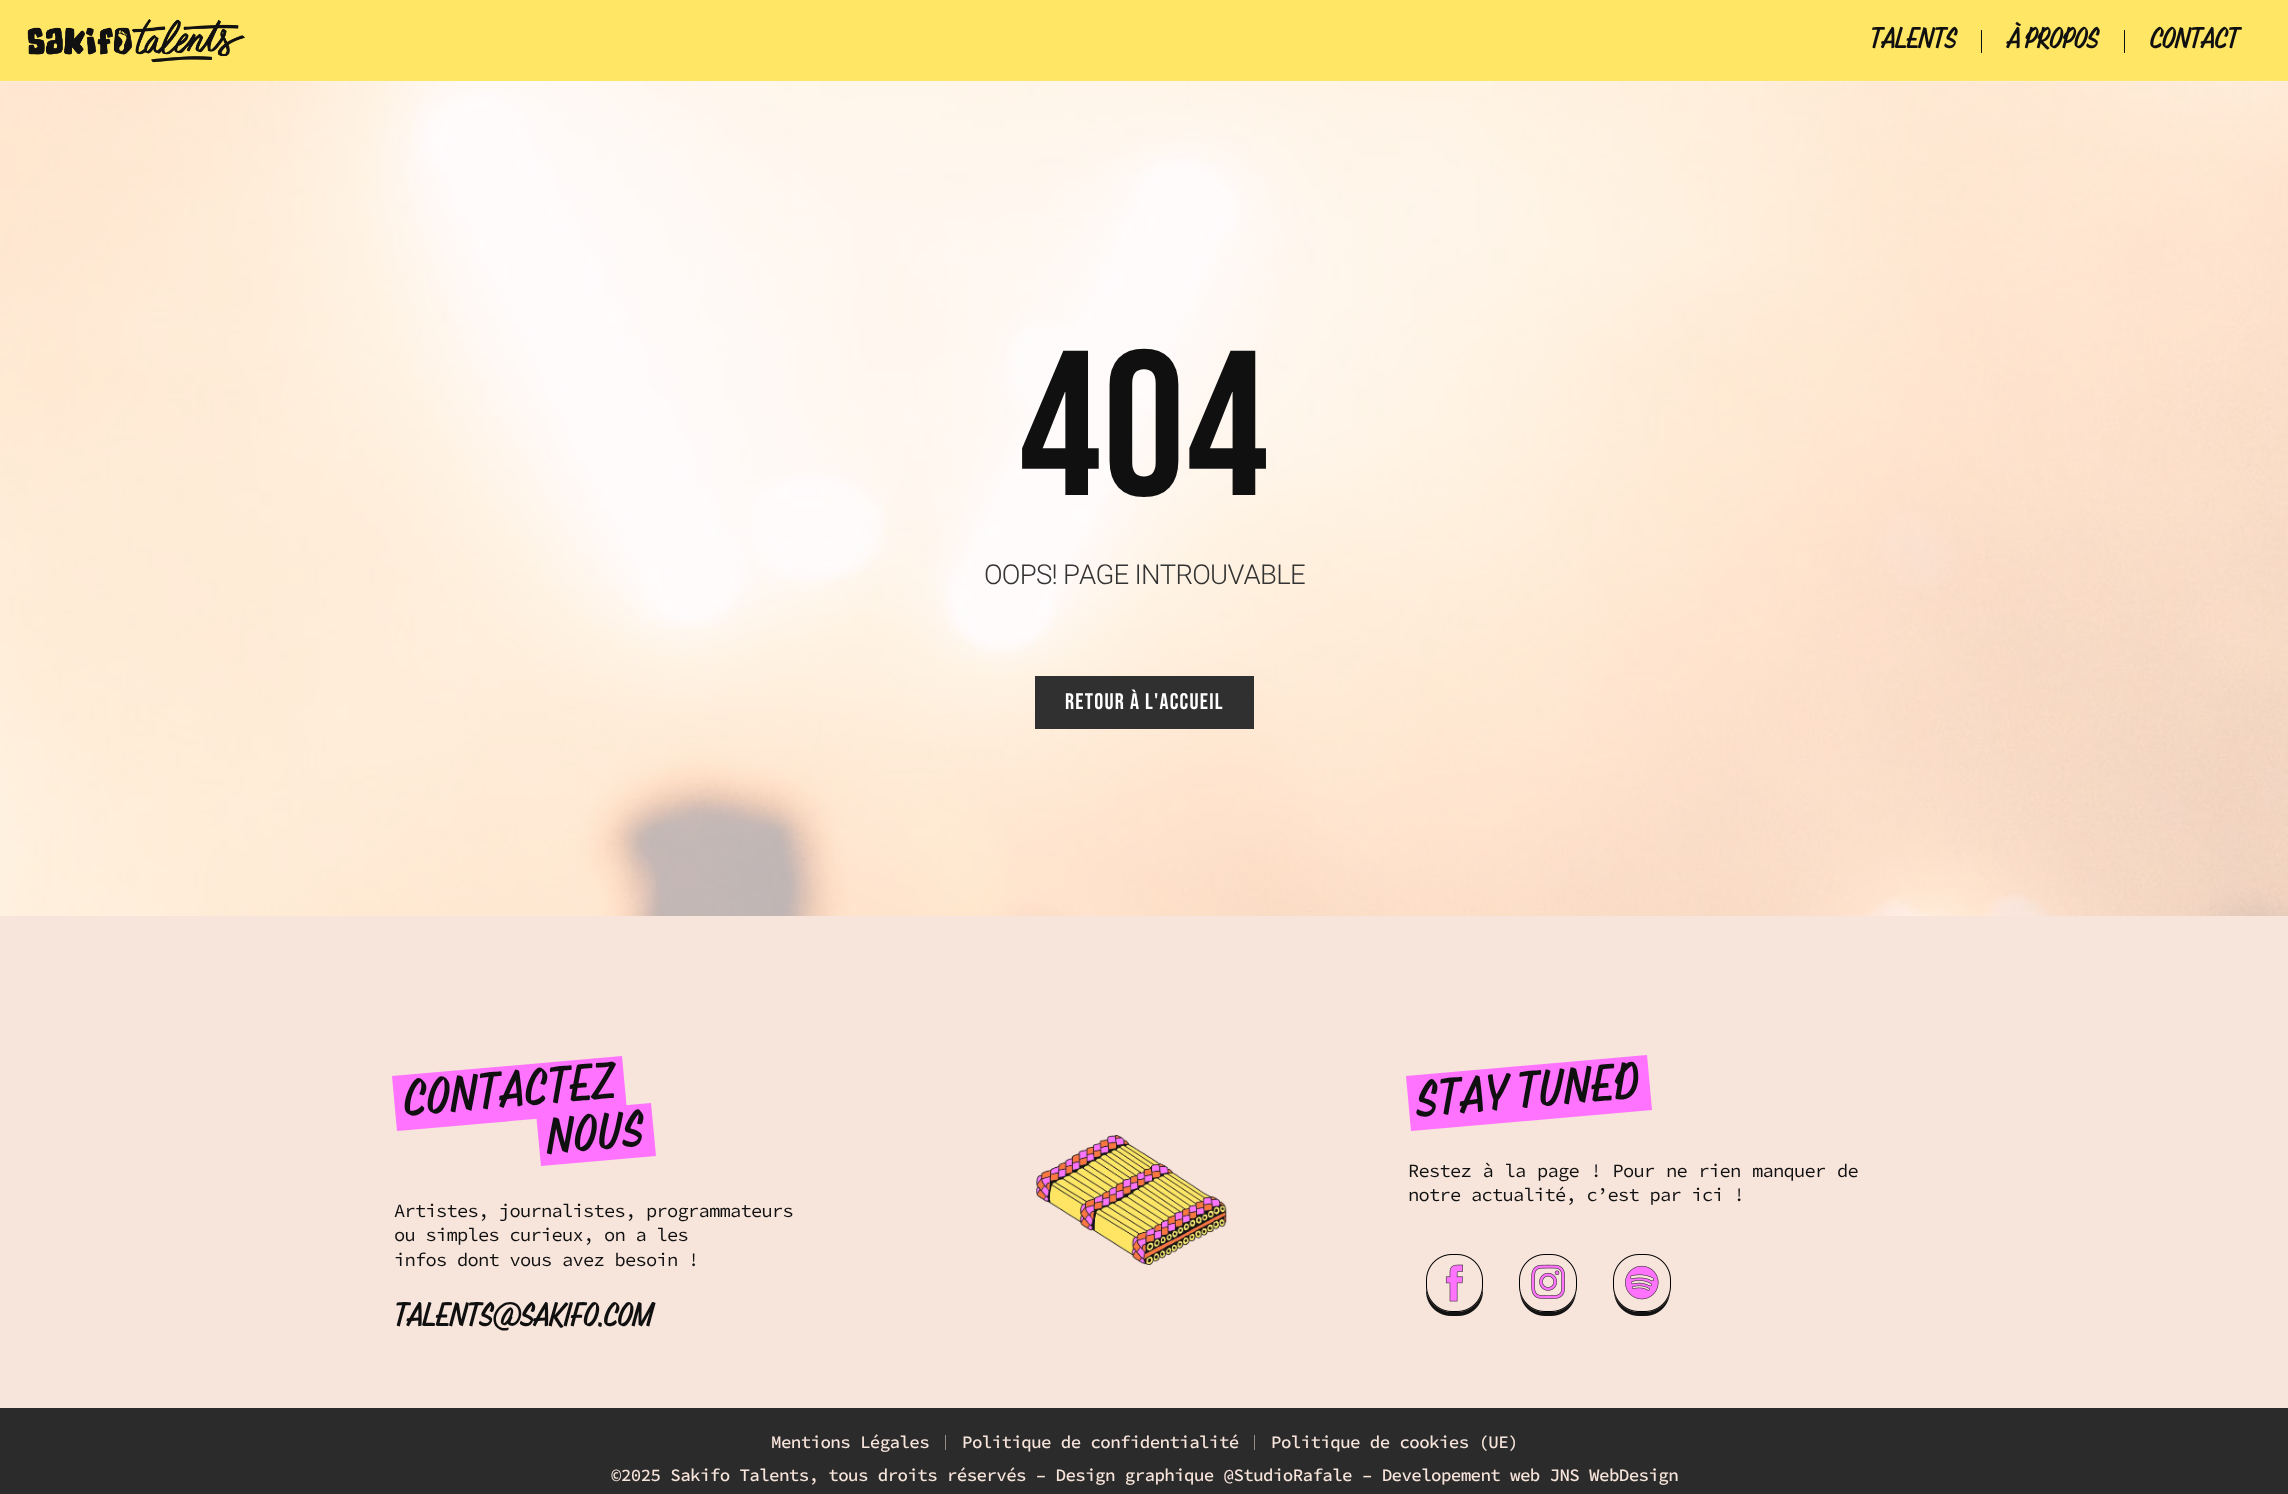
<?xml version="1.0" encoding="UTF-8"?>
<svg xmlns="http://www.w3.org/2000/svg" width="2288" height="1494">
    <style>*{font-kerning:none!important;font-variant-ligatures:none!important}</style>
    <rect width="100%" height="100%" fill="#FFFFFF"/>
    <rect x="0" y="0" width="2288" height="81" fill="#FFE664"/>
    <image x="27" y="19" width="218" height="44" href="img_01.png"/>
    <text x="1870" y="48" font-family="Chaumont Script" font-size="27.5" letter-spacing="-0.75" fill="#101010">TALENTS</text>
    <rect x="1981" y="30" width="1" height="23" fill="#121212"/>
    <text x="2007" y="48" font-family="Chaumont Script" font-size="27.5" letter-spacing="-0.75" fill="#101010">À PROPOS</text>
    <rect x="2124" y="30" width="1" height="23" fill="#121212"/>
    <text x="2150" y="48" font-family="Chaumont Script" font-size="27.5" letter-spacing="-0.75" fill="#101010">CONTACT</text>
    <image x="0" y="81" width="2288" height="835" href="img_02.png"/>
    <text x="1019" y="495" font-family="Bebas Neue" font-size="206" letter-spacing="1.25" fill="#101010">404</text>
    <text x="984" y="584" font-family="Roboto" font-size="27.5" font-weight="300" letter-spacing="-0.75" fill="#333333">OOPS! PAGE INTROUVABLE</text>
    <rect x="1035" y="676" width="219" height="53" fill="#303030"/>
    <text x="1065" y="709" font-family="Bebas Neue" font-size="22.5" letter-spacing="1.25" fill="#FFFFFF">RETOUR À L'ACCUEIL</text>
    <rect x="0" y="916" width="2288" height="492" fill="#F7E4DB"/>
    <path d="M 392 1076 L 622 1056 L 627 1111 L 397 1131 Z" fill="#FF73FF"/>
    <text x="405" y="1116" transform="rotate(-5 405 1116)" font-family="Chaumont Script" font-size="47.5" letter-spacing="0.6" fill="#101010">CONTACTEZ</text>
    <path d="M 536 1113 L 651 1103 L 656 1156 L 541 1166 Z" fill="#FF73FF"/>
    <text x="548" y="1154" transform="rotate(-5 548 1154)" font-family="Chaumont Script" font-size="47.5" letter-spacing="0.6" fill="#101010">NOUS</text>
    <text font-family="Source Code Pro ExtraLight" font-size="18.75" letter-spacing="-0.75" fill="#101010">
        <tspan x="394" y="1217">Artistes, journalistes, programmateurs</tspan>
        <tspan x="394" y="1241">ou simples curieux, on a les</tspan>
        <tspan x="394" y="1266">infos dont vous avez besoin !</tspan>
    </text>
    <text x="394" y="1326" font-family="Chaumont Script" font-size="31.25" letter-spacing="-0.75" fill="#101010">TALENTS@SAKIFO.COM</text>
    <image x="1036" y="1135" width="191" height="130" href="img_03.png"/>
    <path d="M 1406 1076 L 1647 1055 L 1652 1110 L 1411 1131 Z" fill="#FF73FF"/>
    <text x="1418" y="1117" transform="rotate(-5 1418 1117)" word-spacing="-1" font-family="Chaumont Script" font-size="47.5" letter-spacing="0.6" fill="#101010">STAY TUNED</text>
    <text font-family="Source Code Pro ExtraLight" font-size="18.75" letter-spacing="-0.75" fill="#101010">
        <tspan x="1408" y="1177" word-spacing="1">Restez à la page ! Pour ne rien manquer de</tspan>
        <tspan x="1408" y="1201">notre actualité, c’est par ici !</tspan>
    </text>
    <image x="1426" y="1254" width="57" height="62" href="img_04.png"/>
    <image x="1519" y="1254" width="58" height="62" href="img_05.png"/>
    <image x="1613" y="1254" width="58" height="62" href="img_06.png"/>
    <rect x="0" y="1408" width="2288" height="86" fill="#2B2B2B"/>
    <text x="771" y="1448" font-family="Source Code Pro ExtraLight" font-size="17.5" font-weight="500" letter-spacing="-0.62" fill="#F7E4DB">Mentions Légales</text>
    <rect x="945" y="1435" width="1" height="15" fill="#958B87"/>
    <text x="962" y="1448" font-family="Source Code Pro ExtraLight" font-size="17.5" font-weight="500" letter-spacing="-0.62" fill="#F7E4DB">Politique de confidentialité</text>
    <rect x="1254" y="1435" width="1" height="15" fill="#958B87"/>
    <text x="1271" y="1448" font-family="Source Code Pro ExtraLight" font-size="17.5" font-weight="500" letter-spacing="-0.62" fill="#F7E4DB">Politique de cookies (UE)</text>
    <text x="611" y="1481" font-family="Source Code Pro ExtraLight" font-size="17.5" font-weight="500" letter-spacing="-0.62" fill="#F7E4DB">©2025 Sakifo Talents, tous droits réservés – Design graphique @StudioRafale – Developement web JNS WebDesign</text>
</svg>
